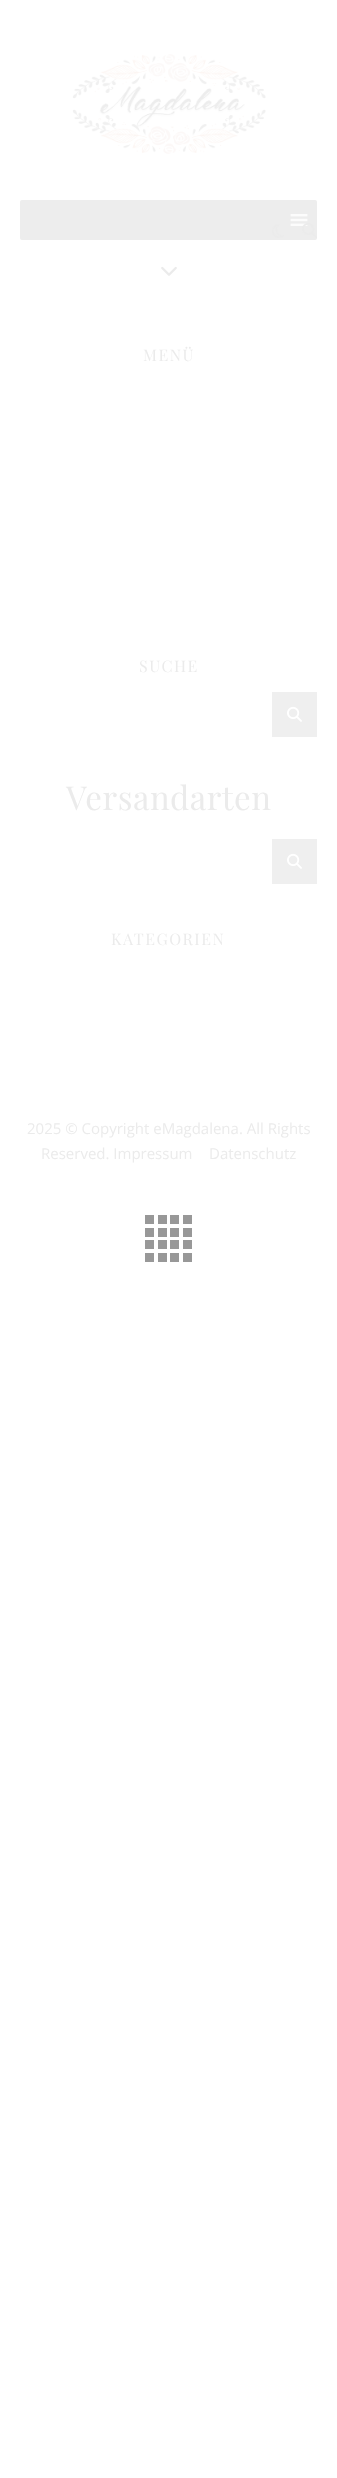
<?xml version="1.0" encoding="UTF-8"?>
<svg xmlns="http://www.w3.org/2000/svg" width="337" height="2478">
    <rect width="100%" height="100%" fill="#FFFFFF"/>
    <image x="72" y="54" width="194" height="100" href="img_01.png"/>
    <rect x="20" y="200" width="297" height="40" rx="2" fill="#EDEDED"/>
    <image x="290" y="214" width="18" height="12" href="img_02.png"/>
    <image x="272" y="224" width="12" height="14" href="img_03.png"/>
    <image x="302" y="223" width="15" height="15" href="img_04.png"/>
    <image x="161" y="266" width="16" height="10" href="img_05.png"/>
    <text x="143" y="361" font-family="Playfair Display" font-size="16" letter-spacing="1.5" fill="#EBEBEB">MENÜ</text>
    <text x="139" y="672" font-family="Playfair Display" font-size="16" letter-spacing="1.5" fill="#EBEBEB">SUCHE</text>
    <rect x="272" y="692" width="45" height="45" fill="#EFEFEF"/>
    <image x="287" y="706" width="15" height="16" href="img_06.png"/>
    <text x="66" y="810" font-family="Playfair Display" font-size="33" letter-spacing="0.5" fill="#EBEBEB">Versandarten</text>
    <rect x="272" y="839" width="45" height="45" fill="#EFEFEF"/>
    <image x="287" y="853" width="15" height="16" href="img_06.png"/>
    <text x="111" y="945" font-family="Playfair Display" font-size="16" letter-spacing="1.5" fill="#EBEBEB">KATEGORIEN</text>
    <text x="27" y="1134" font-family="Open Sans" font-size="15" fill="#EBEBEB">2025 © Copyright eMagdalena. All Rights</text>
    <text x="41" y="1159" font-family="Open Sans" font-size="15" fill="#EBEBEB">Reserved. Impressum</text>
    <text x="209" y="1159" font-family="Open Sans" font-size="15" fill="#EBEBEB">Datenschutz</text>
    <rect x="145" y="1215" width="9" height="9" fill="#989898"/>
    <rect x="158" y="1215" width="9" height="9" fill="#989898"/>
    <rect x="170" y="1215" width="9" height="9" fill="#989898"/>
    <rect x="183" y="1215" width="9" height="9" fill="#989898"/>
    <rect x="145" y="1228" width="9" height="9" fill="#989898"/>
    <rect x="158" y="1228" width="9" height="9" fill="#989898"/>
    <rect x="170" y="1228" width="9" height="9" fill="#989898"/>
    <rect x="183" y="1228" width="9" height="9" fill="#989898"/>
    <rect x="145" y="1240" width="9" height="9" fill="#989898"/>
    <rect x="158" y="1240" width="9" height="9" fill="#989898"/>
    <rect x="170" y="1240" width="9" height="9" fill="#989898"/>
    <rect x="183" y="1240" width="9" height="9" fill="#989898"/>
    <rect x="145" y="1253" width="9" height="9" fill="#989898"/>
    <rect x="158" y="1253" width="9" height="9" fill="#989898"/>
    <rect x="170" y="1253" width="9" height="9" fill="#989898"/>
    <rect x="183" y="1253" width="9" height="9" fill="#989898"/>
</svg>
